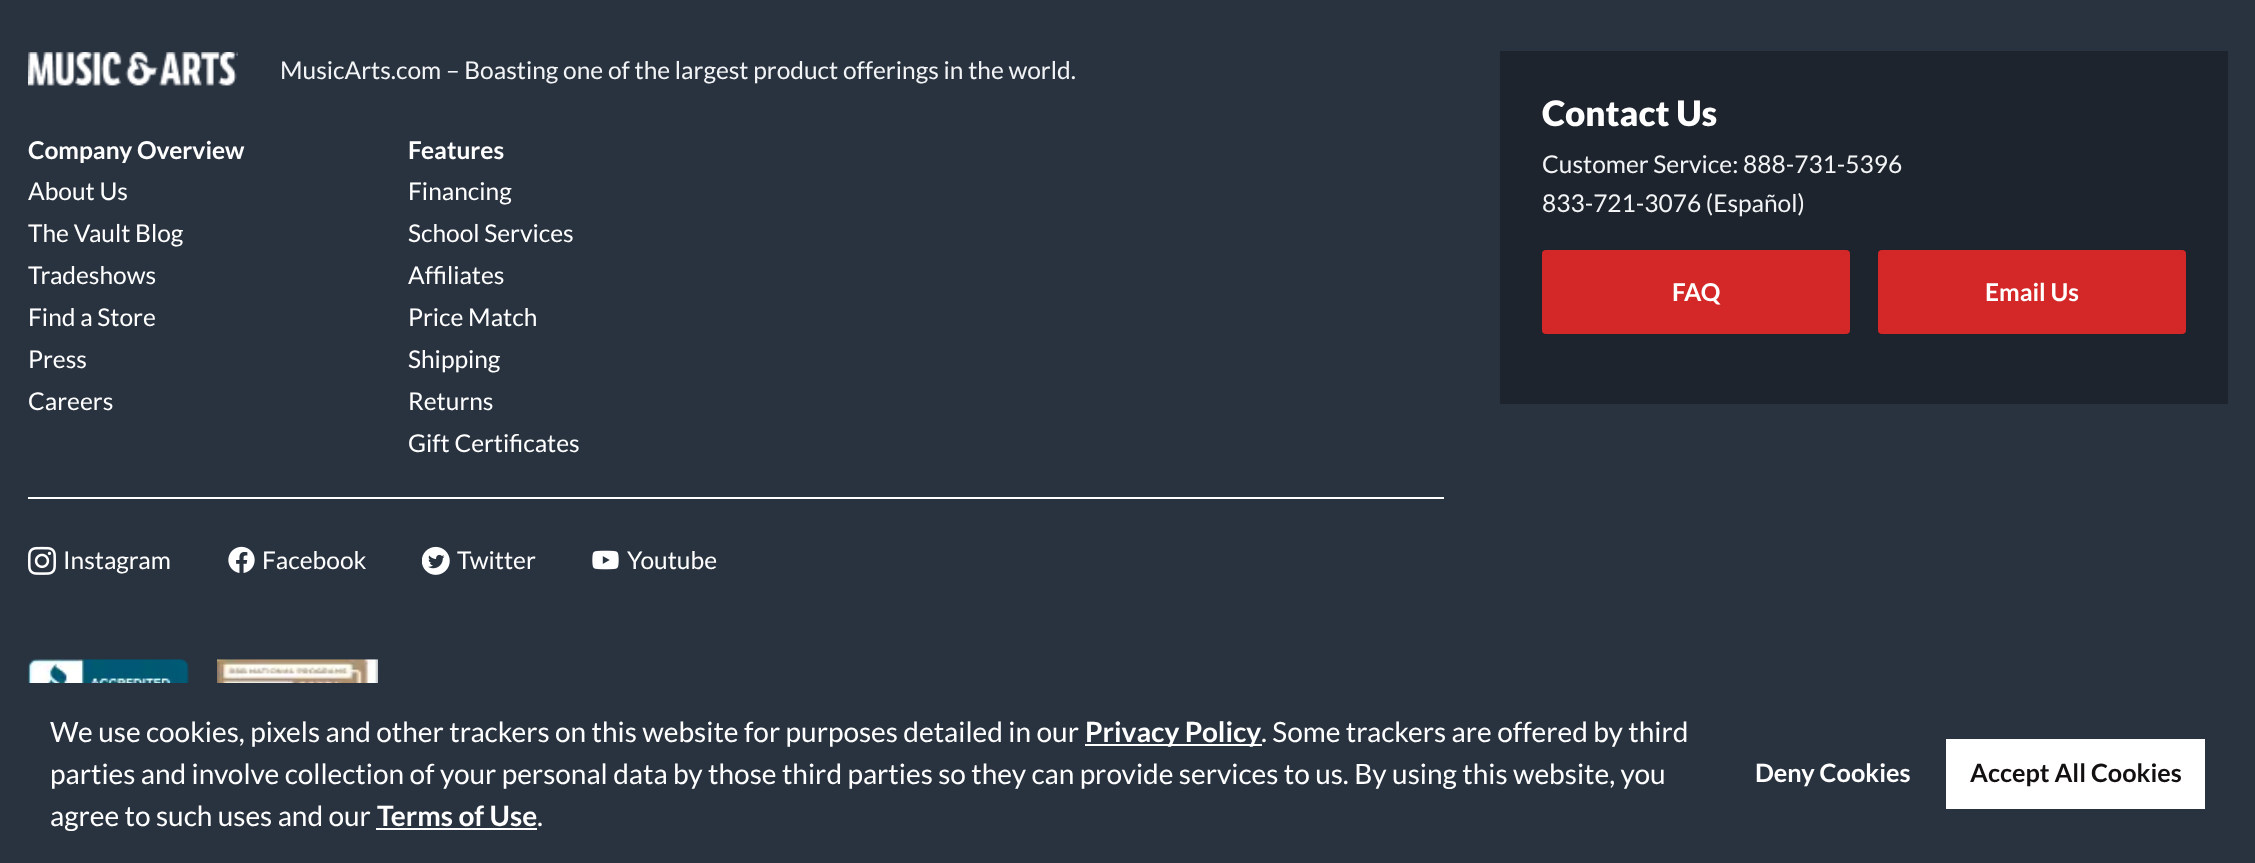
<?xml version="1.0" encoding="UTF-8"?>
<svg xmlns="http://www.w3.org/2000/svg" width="2255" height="863">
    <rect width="100%" height="100%" fill="#293340"/>
    <image x="28" y="52" width="210" height="34" href="img_01.png"/>
    <text x="280" y="79" font-family="Lato" font-size="24.5" fill="#F3F4F6">MusicArts.com – Boasting one of the largest product offerings in the world.</text>
    <text x="28" y="159" font-family="Lato" font-size="24.5" font-weight="700" fill="#FFFFFF">Company Overview</text>
    <text font-family="Lato" font-size="24.5" fill="#FFFFFF">
        <tspan x="28" y="200">About Us</tspan>
        <tspan x="28" y="242">The Vault Blog</tspan>
        <tspan x="28" y="284">Tradeshows</tspan>
        <tspan x="28" y="326">Find a Store</tspan>
        <tspan x="28" y="368">Press</tspan>
        <tspan x="28" y="410">Careers</tspan>
    </text>
    <text x="408" y="159" font-family="Lato" font-size="24.5" font-weight="700" fill="#FFFFFF">Features</text>
    <text font-family="Lato" font-size="24.5" fill="#FFFFFF">
        <tspan x="408" y="200">Financing</tspan>
        <tspan x="408" y="242">School Services</tspan>
        <tspan x="408" y="284">Affiliates</tspan>
        <tspan x="408" y="326">Price Match</tspan>
        <tspan x="408" y="368">Shipping</tspan>
        <tspan x="408" y="410">Returns</tspan>
        <tspan x="408" y="452">Gift Certificates</tspan>
    </text>
    <rect x="28" y="497" width="1416" height="2" fill="#FFFFFF"/>
    <image x="28" y="546" width="28" height="29" href="img_02.png"/>
    <text x="63" y="569" font-family="Lato" font-size="24.5" fill="#FFFFFF">Instagram</text>
    <image x="228" y="546" width="27" height="27" href="img_03.png"/>
    <text x="262" y="569" font-family="Lato" font-size="24.5" fill="#FFFFFF">Facebook</text>
    <image x="422" y="546" width="28" height="29" href="img_04.png"/>
    <text x="457" y="569" font-family="Lato" font-size="24.5" fill="#FFFFFF">Twitter</text>
    <image x="592" y="550" width="27" height="20" href="img_05.png"/>
    <text x="627" y="569" font-family="Lato" font-size="24.5" fill="#FFFFFF">Youtube</text>
    <rect x="1500" y="51" width="728" height="353" fill="#1D242D"/>
    <text x="1542" y="126" font-family="Lato" font-size="35" font-weight="900" fill="#FFFFFF">Contact Us</text>
    <text font-family="Lato" font-size="24.5" fill="#F3F4F6">
        <tspan x="1542" y="173">Customer Service: 888-731-5396</tspan>
        <tspan x="1542" y="212">833-721-3076 (Español)</tspan>
    </text>
    <rect x="1542" y="250" width="308" height="84" rx="4" fill="#D42828"/>
    <text x="1672" y="301" font-family="Lato" font-size="24.5" font-weight="700" fill="#FFFFFF">FAQ</text>
    <rect x="1878" y="250" width="308" height="84" rx="4" fill="#D42828"/>
    <text x="1985" y="301" font-family="Lato" font-size="24.5" font-weight="700" fill="#FFFFFF">Email Us</text>
    <image x="28" y="659" width="161" height="24" href="img_06.png"/>
    <image x="217" y="659" width="161" height="24" href="img_07.png"/>
    <text x="50" y="742" font-family="Lato" font-size="28" fill="#FFFFFF">We use cookies, pixels and other trackers on this website for purposes detailed in our</text>
    <rect x="1085" y="744" width="177" height="2" fill="#FFFFFF"/>
    <text x="1085" y="742" font-family="Lato" font-size="28" font-weight="700" fill="#FFFFFF">Privacy Policy</text>
    <text x="1261" y="742" font-family="Lato" font-size="28" fill="#FFFFFF">. Some trackers are offered by third</text>
    <text font-family="Lato" font-size="28" fill="#FFFFFF">
        <tspan x="50" y="784">parties and involve collection of your personal data by those third parties so they can provide services to us. By using this website, you</tspan>
        <tspan x="50" y="826">agree to such uses and our</tspan>
    </text>
    <text x="377" y="826" font-family="Lato" font-size="28" font-weight="700" fill="#FFFFFF">Terms of Use</text>
    <rect x="376" y="828" width="161" height="2" fill="#FFFFFF"/>
    <text x="537" y="826" font-family="Lato" font-size="28" fill="#FFFFFF">.</text>
    <text x="1755" y="782" font-family="Lato" font-size="25.25" font-weight="700" fill="#FFFFFF">Deny Cookies</text>
    <rect x="1946" y="739" width="259" height="70" fill="#FFFFFF"/>
    <text x="1970" y="782" font-family="Lato" font-size="25.25" font-weight="700" fill="#121010">Accept All Cookies</text>
</svg>
